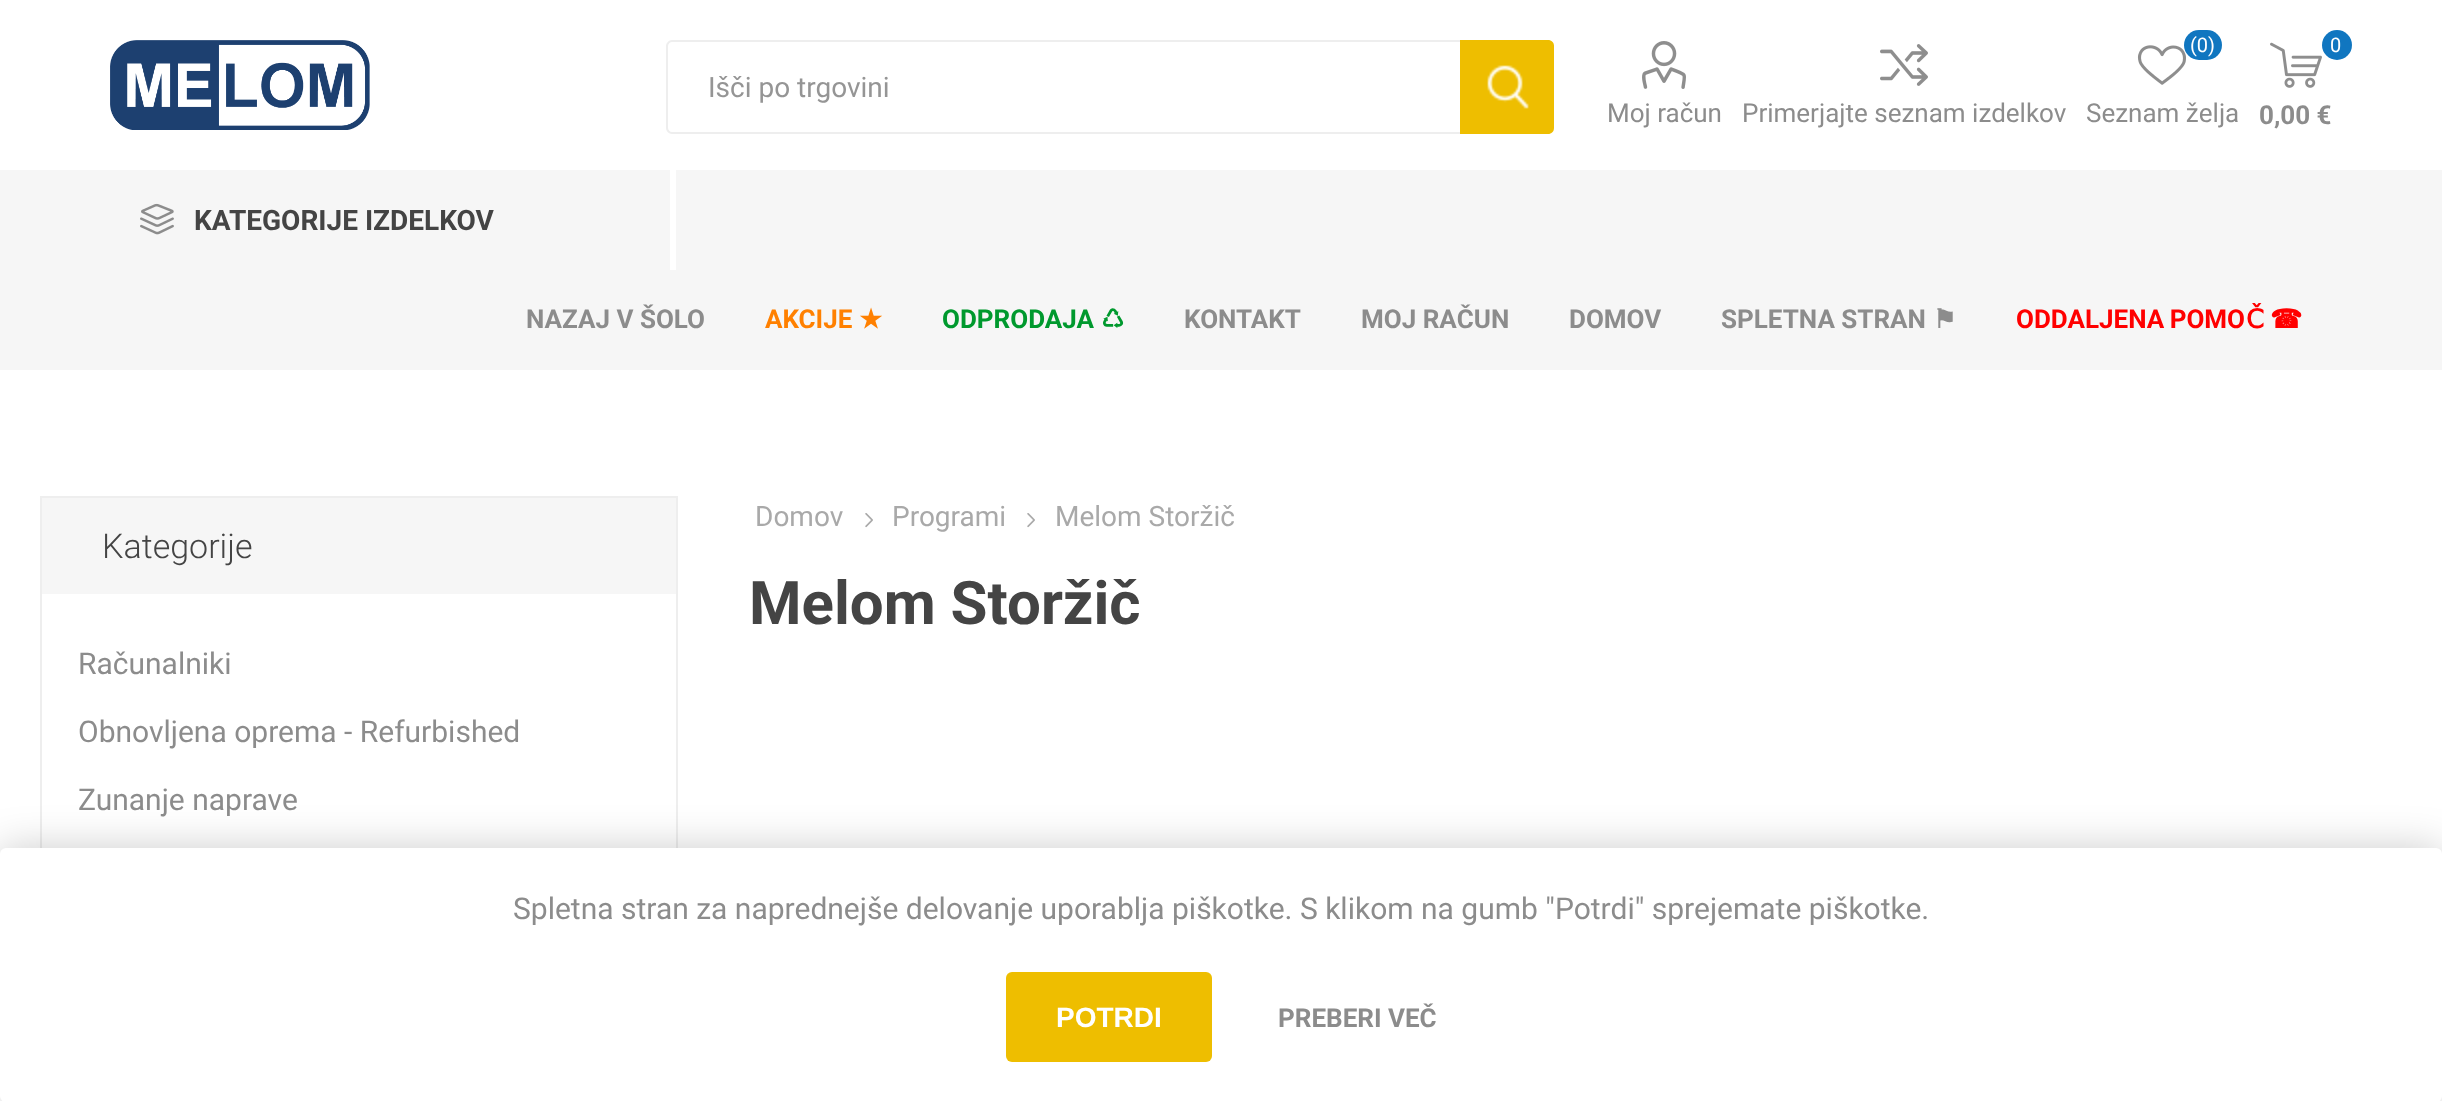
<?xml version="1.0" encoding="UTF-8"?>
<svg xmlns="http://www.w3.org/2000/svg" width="2442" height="1101">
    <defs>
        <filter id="blur1" x="-50%" y="-200%" width="200%" height="500%"><feGaussianBlur stdDeviation="20"/></filter>
    </defs>
    <rect width="100%" height="100%" fill="#FFFFFF"/>
    <image x="110" y="40" width="260" height="90" href="img_01.png"/>
    <path d="M 672 40 H 1460 V 134 H 672 C 669 134 666 131 666 128 V 46 C 666 43 669 40 672 40 Z M 672 42 H 1460 V 132 H 672 C 670 132 668 130 668 128 V 46 C 668 44 670 42 672 42 Z" fill="#EEEEEE" fill-rule="evenodd"/>
    <text x="708" y="97" font-family="Roboto" font-size="28" fill="#959595">Išči po trgovini</text>
    <path d="M 1460 40 H 1548 C 1551.5 40 1554 42.5 1554 46 V 128 C 1554 131.5 1551.5 134 1548 134 H 1460 Z" fill="#EEBE00"/>
    <image x="1487" y="65" width="42" height="44" href="img_02.png"/>
    <image x="1642" y="41" width="44" height="48" href="img_03.png"/>
    <text x="1607" y="122" font-family="Roboto" font-size="26" fill="#8C8C8C">Moj račun</text>
    <image x="1880" y="44" width="48" height="42" href="img_04.png"/>
    <text x="1742" y="122" font-family="Roboto" font-size="26" fill="#8C8C8C">Primerjajte seznam izdelkov</text>
    <image x="2137" y="45" width="49" height="40" href="img_05.png"/>
    <rect x="2184" y="30" width="38" height="30" rx="15" fill="#1076C0"/>
    <text x="2190" y="52" font-family="Roboto" font-size="20" fill="#FFFFFF">(0)</text>
    <text x="2086" y="122" font-family="Roboto" font-size="26" fill="#8C8C8C">Seznam želja</text>
    <image x="2270" y="42" width="52" height="46" href="img_06.png"/>
    <circle cx="2337" cy="45" r="15" fill="#1076C0"/>
    <text x="2330" y="52" font-family="Roboto" font-size="20" fill="#FFFFFF">0</text>
    <text x="2259" y="124" font-family="Roboto" font-size="26" font-weight="700" fill="#8C8C8C">0,00 €</text>
    <rect x="0" y="170" width="2442" height="200" fill="#F6F6F6"/>
    <rect x="670" y="170" width="6" height="100" fill="#FFFFFF"/>
    <image x="140" y="203" width="34" height="32" href="img_07.png"/>
    <text x="194" y="230" font-family="Roboto" font-size="28" font-weight="700" fill="#444444">KATEGORIJE IZDELKOV</text>
    <text x="526" y="328" font-family="Roboto" font-size="26" font-weight="700" fill="#8C8C8C">NAZAJ V ŠOLO</text>
    <text x="765" y="328" font-family="Roboto" font-size="26" font-weight="700" fill="#FF8000">AKCIJE</text>
    <text x="859" y="328" font-family="DejaVu Sans" font-size="26" font-weight="700" fill="#FF8000">★</text>
    <text x="942" y="328" font-family="Roboto" font-size="26" font-weight="700" fill="#00992E">ODPRODAJA</text>
    <text x="1101" y="328" font-family="DejaVu Sans" font-size="26" font-weight="700" fill="#00992E">♺</text>
    <text x="1184" y="328" font-family="Roboto" font-size="26" font-weight="700" fill="#8C8C8C">KONTAKT</text>
    <text x="1361" y="328" font-family="Roboto" font-size="26" font-weight="700" fill="#8C8C8C">MOJ RAČUN</text>
    <text x="1569" y="328" font-family="Roboto" font-size="26" font-weight="700" fill="#8C8C8C">DOMOV</text>
    <text x="1721" y="328" font-family="Roboto" font-size="26" font-weight="700" fill="#8C8C8C">SPLETNA STRAN</text>
    <text x="1933" y="328" font-family="DejaVu Sans" font-size="26" font-weight="700" fill="#8C8C8C">⚑</text>
    <text x="2016" y="328" word-spacing="-1" font-family="Roboto" font-size="26" font-weight="700" fill="#FF0000">ODDALJENA POMO</text>
    <text x="2246" y="328" font-family="DejaVu Sans" font-size="26" font-weight="700" fill="#FF0000">Č</text>
    <text x="2270" y="328" font-family="DejaVu Sans" font-size="26" font-weight="700" fill="#FF0000">☎</text>
    <rect x="41" y="497" width="636" height="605" fill="none" stroke="#EEEEEE" stroke-width="2"/>
    <rect x="42" y="498" width="634" height="96" fill="#F6F6F6"/>
    <text x="102" y="558" font-family="Roboto" font-size="34" font-weight="300" fill="#444444">Kategorije</text>
    <text x="78" y="674" font-family="Roboto" font-size="30" fill="#8C8C8C">Računalniki</text>
    <text x="78" y="742" font-family="Roboto" font-size="30" fill="#8C8C8C">Obnovljena oprema - Refurbished</text>
    <text x="78" y="810" font-family="Roboto" font-size="30" fill="#8C8C8C">Zunanje naprave</text>
    <text x="755" y="526" font-family="Roboto" font-size="28" fill="#A9A9A9">Domov</text>
    <image x="865" y="513" width="8" height="15" href="img_08.png"/>
    <text x="892" y="526" font-family="Roboto" font-size="28" fill="#A9A9A9">Programi</text>
    <image x="1027" y="513" width="8" height="15" href="img_08.png"/>
    <text x="1055" y="526" font-family="Roboto" font-size="28" fill="#A9A9A9">Melom Storžič</text>
    <text x="749" y="624" font-family="Roboto" font-size="60" font-weight="700" fill="#444444">Melom Storžič</text>
    <rect x="0" y="848" width="2442" height="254" rx="6" fill="#000000" fill-opacity="0.2" filter="url(#blur1)"/>
    <rect x="0" y="848" width="2442" height="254" rx="6" fill="#FFFFFF"/>
    <text x="513" y="919" font-family="Roboto" font-size="30" fill="#8C8C8C">Spletna stran za naprednejše delovanje uporablja piškotke. S klikom na gumb "Potrdi" sprejemate piškotke.</text>
    <rect x="1006" y="972" width="206" height="90" rx="6" fill="#EEBE00"/>
    <text x="1056" y="1027" font-family="Liberation Sans" font-size="28" font-weight="700" fill="#FFFFFF">POTRDI</text>
    <text x="1278" y="1027" font-family="Roboto" font-size="26" font-weight="700" fill="#8C8C8C">PREBERI VEČ</text>
</svg>
